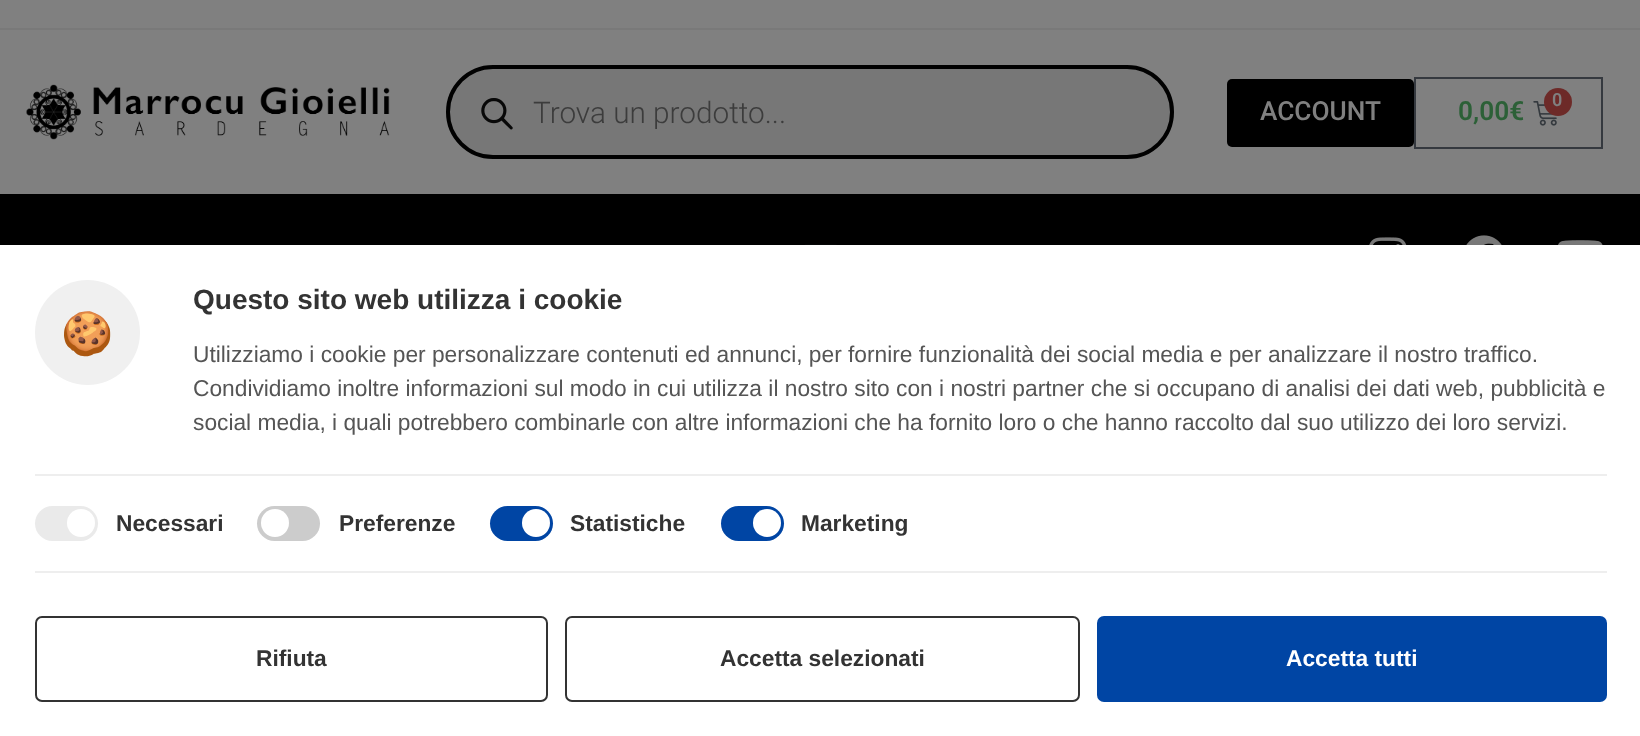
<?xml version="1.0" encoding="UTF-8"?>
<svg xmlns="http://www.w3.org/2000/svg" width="1640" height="736">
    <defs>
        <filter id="blur1" x="-50%" y="-200%" width="200%" height="500%"><feGaussianBlur stdDeviation="17.5"/></filter>
    </defs>
    <rect width="100%" height="100%" fill="#808080"/>
    <rect x="0" y="28" width="1640" height="2" fill="#797979"/>
    <image x="26" y="84" width="364" height="56" href="img_01.png"/>
    <rect x="448" y="67" width="724" height="90" rx="45" fill="#777777" stroke="#010101" stroke-width="4"/>
    <image x="481" y="98" width="32" height="32" href="img_02.png"/>
    <text x="533" y="123" font-family="Roboto" font-size="29.75" font-weight="300" fill="#3C3C3C">Trova un prodotto...</text>
    <rect x="1227" y="79" width="187" height="68" rx="5" fill="#000000"/>
    <text x="1260" y="120" font-family="Roboto" font-size="26.25" font-weight="500" fill="#808080">ACCOUNT</text>
    <rect x="1415" y="78" width="187" height="70" fill="none" stroke="#35393F" stroke-width="2"/>
    <text x="1458" y="120" font-family="Roboto" font-size="26.25" font-weight="600" fill="#2C6037">0,00€</text>
    <image x="1533" y="101" width="24" height="25" href="img_03.png"/>
    <circle cx="1558" cy="102" r="14" fill="#6D2A28"/>
    <text x="1552" y="106" font-family="Roboto" font-size="18" font-weight="600" fill="#808080">0</text>
    <rect x="0" y="194" width="1640" height="51" fill="#000000"/>
    <image x="804" y="244" width="33" height="1" href="img_04.png"/>
    <image x="1369" y="237" width="38" height="8" href="img_05.png"/>
    <image x="1466" y="235" width="36" height="10" href="img_06.png"/>
    <image x="1558" y="240" width="45" height="5" href="img_07.png"/>
    <rect x="0" y="238" width="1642" height="492" fill="#000000" fill-opacity="0.1" filter="url(#blur1)"/>
    <rect x="0" y="245" width="1640" height="491" fill="#FFFFFF"/>
    <circle cx="87.5" cy="332.5" r="52.5" fill="#F0F0F0"/>
    <text x="61" y="348" font-family="Noto Color Emoji" font-size="42" fill="#333333">🍪</text>
    <text x="193" y="309" font-family="Liberation Sans" font-size="28" font-weight="700" fill="#333333">Questo sito web utilizza i cookie</text>
    <text font-family="Liberation Sans" font-size="22.75" fill="#555555">
        <tspan x="193" y="362">Utilizziamo i cookie per personalizzare contenuti ed annunci, per fornire funzionalità dei social media e per analizzare il nostro traffico.</tspan>
        <tspan x="193" y="396">Condividiamo inoltre informazioni sul modo in cui utilizza il nostro sito con i nostri partner che si occupano di analisi dei dati web, pubblicità e</tspan>
        <tspan x="193" y="430">social media, i quali potrebbero combinarle con altre informazioni che ha fornito loro o che hanno raccolto dal suo utilizzo dei loro servizi.</tspan>
    </text>
    <rect x="35" y="474" width="1572" height="2" fill="#EEEEEE"/>
    <rect x="35" y="571" width="1572" height="2" fill="#EEEEEE"/>
    <rect x="35" y="506" width="63" height="35" rx="17.5" fill="#EAEAEA"/>
    <circle cx="81" cy="523" r="14" fill="#FFFFFF"/>
    <text x="116" y="531" font-family="Liberation Sans" font-size="22.75" font-weight="700" fill="#333333">Necessari</text>
    <rect x="257" y="506" width="63" height="35" rx="17.5" fill="#CCCCCC"/>
    <circle cx="275" cy="523" r="14" fill="#FFFFFF"/>
    <text x="339" y="531" font-family="Liberation Sans" font-size="22.75" font-weight="700" fill="#333333">Preferenze</text>
    <rect x="490" y="506" width="63" height="35" rx="17.5" fill="#0045A4"/>
    <circle cx="536" cy="523" r="14" fill="#FFFFFF"/>
    <text x="570" y="531" font-family="Liberation Sans" font-size="22.75" font-weight="700" fill="#333333">Statistiche</text>
    <rect x="721" y="506" width="63" height="35" rx="17.5" fill="#0045A4"/>
    <circle cx="767" cy="523" r="14" fill="#FFFFFF"/>
    <text x="801" y="531" font-family="Liberation Sans" font-size="22.75" font-weight="700" fill="#333333">Marketing</text>
    <rect x="36" y="617" width="511" height="84" rx="6" fill="none" stroke="#333333" stroke-width="2"/>
    <text x="256" y="666" font-family="Liberation Sans" font-size="22.75" font-weight="700" fill="#333333">Rifiuta</text>
    <rect x="566" y="617" width="513" height="84" rx="6" fill="none" stroke="#333333" stroke-width="2"/>
    <text x="720" y="666" font-family="Liberation Sans" font-size="22.75" font-weight="700" fill="#333333">Accetta selezionati</text>
    <rect x="1097" y="616" width="510" height="86" rx="7" fill="#0045A4"/>
    <text x="1286" y="666" font-family="Liberation Sans" font-size="22.75" font-weight="700" fill="#FFFFFF">Accetta tutti</text>
</svg>
